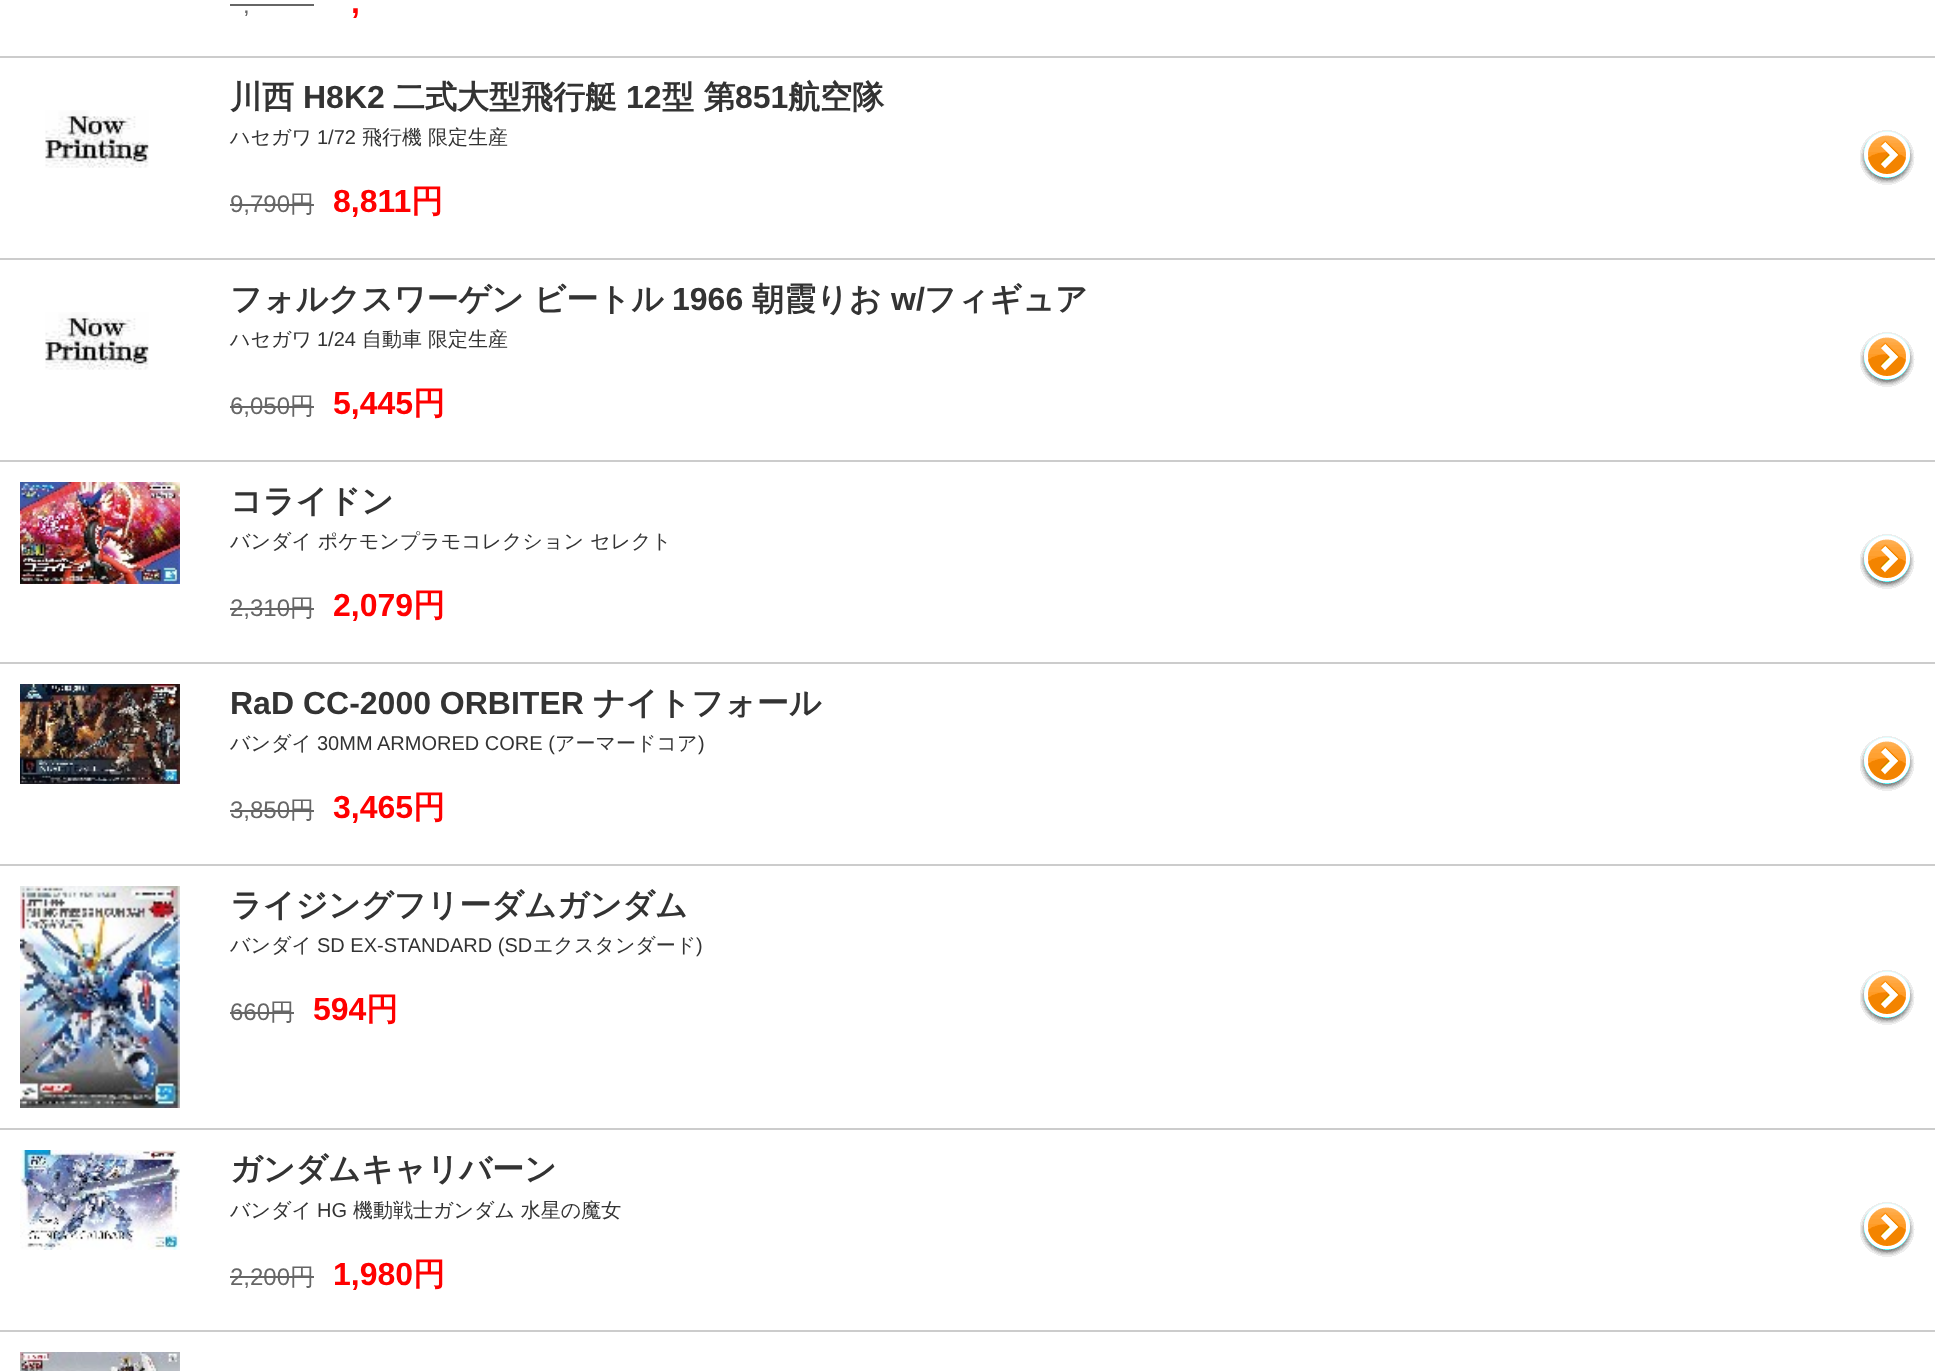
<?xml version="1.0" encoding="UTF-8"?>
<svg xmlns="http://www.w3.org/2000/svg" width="1935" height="1371">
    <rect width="100%" height="100%" fill="#FFFFFF"/>
    <rect x="0" y="56" width="1935" height="2" fill="#CCCCCC"/>
    <text x="243" y="13" font-family="Liberation Sans" font-size="24" fill="#666666">,</text>
    <rect x="230" y="4" width="84" height="2" fill="#666666"/>
    <text x="351" y="13" font-family="Liberation Sans" font-size="32" font-weight="700" fill="#FF0000">,</text>
    <image x="1860" y="130" width="55" height="55" href="img_01.png"/>
    <rect x="0" y="258" width="1935" height="2" fill="#CCCCCC"/>
    <image x="45" y="110" width="104" height="58" href="img_02.png"/>
    <text x="230" y="108" font-family="WenQuanYi Zen Hei" font-size="32" font-weight="700" fill="#333333">川西</text>
    <text x="303" y="108" font-family="Liberation Sans" font-size="32" font-weight="700" fill="#333333">H8K2</text>
    <text x="393" y="108" font-family="WenQuanYi Zen Hei" font-size="32" font-weight="700" fill="#333333">二式大型飛行艇</text>
    <text x="626" y="108" font-family="Liberation Sans" font-size="32" font-weight="700" fill="#333333">12</text>
    <text x="662" y="108" font-family="WenQuanYi Zen Hei" font-size="32" font-weight="700" fill="#333333">型 第</text>
    <text x="735" y="108" font-family="Liberation Sans" font-size="32" font-weight="700" fill="#333333">851</text>
    <text x="788" y="108" font-family="WenQuanYi Zen Hei" font-size="32" font-weight="700" fill="#333333">航空隊</text>
    <text x="230" y="144" font-family="WenQuanYi Zen Hei" font-size="20" font-weight="500" fill="#333333">ハセガワ</text>
    <text x="317" y="144" font-family="Liberation Sans" font-size="20" fill="#333333">1/72</text>
    <text x="362" y="144" font-family="WenQuanYi Zen Hei" font-size="20" font-weight="500" fill="#333333">飛行機 限定生産</text>
    <text x="230" y="212" font-family="Liberation Sans" font-size="24" fill="#666666">9,790</text>
    <rect x="230" y="204" width="84" height="2" fill="#666666"/>
    <text x="290" y="212" font-family="WenQuanYi Zen Hei" font-size="24" font-weight="500" fill="#666666">円</text>
    <text x="333" y="212" font-family="Liberation Sans" font-size="32" font-weight="700" fill="#FF0000">8,811</text>
    <text x="411" y="212" font-family="WenQuanYi Zen Hei" font-size="32" font-weight="700" fill="#FF0000">円</text>
    <image x="1860" y="332" width="55" height="55" href="img_01.png"/>
    <rect x="0" y="460" width="1935" height="2" fill="#CCCCCC"/>
    <image x="45" y="312" width="104" height="58" href="img_02.png"/>
    <text x="230" y="310" font-family="WenQuanYi Zen Hei" font-size="32" font-weight="700" fill="#333333">フォルクスワーゲン ビートル</text>
    <text x="672" y="310" font-family="Liberation Sans" font-size="32" font-weight="700" fill="#333333">1966</text>
    <text x="752" y="310" font-family="WenQuanYi Zen Hei" font-size="32" font-weight="700" fill="#333333">朝霞りお</text>
    <text x="891" y="310" font-family="Liberation Sans" font-size="32" font-weight="700" fill="#333333">w/</text>
    <text x="924" y="310" font-family="WenQuanYi Zen Hei" font-size="32" font-weight="700" fill="#333333">フィギュア</text>
    <text x="230" y="346" font-family="WenQuanYi Zen Hei" font-size="20" font-weight="500" fill="#333333">ハセガワ</text>
    <text x="317" y="346" font-family="Liberation Sans" font-size="20" fill="#333333">1/24</text>
    <text x="362" y="346" font-family="WenQuanYi Zen Hei" font-size="20" font-weight="500" fill="#333333">自動車 限定生産</text>
    <text x="230" y="414" font-family="Liberation Sans" font-size="24" fill="#666666">6,050</text>
    <rect x="230" y="406" width="84" height="2" fill="#666666"/>
    <text x="290" y="414" font-family="WenQuanYi Zen Hei" font-size="24" font-weight="500" fill="#666666">円</text>
    <text x="333" y="414" font-family="Liberation Sans" font-size="32" font-weight="700" fill="#FF0000">5,445</text>
    <text x="413" y="414" font-family="WenQuanYi Zen Hei" font-size="32" font-weight="700" fill="#FF0000">円</text>
    <image x="1860" y="534" width="55" height="55" href="img_01.png"/>
    <rect x="0" y="662" width="1935" height="2" fill="#CCCCCC"/>
    <image x="20" y="482" width="160" height="102" href="img_03.png"/>
    <text x="230" y="512" font-family="WenQuanYi Zen Hei" font-size="32" font-weight="700" fill="#333333">コライドン</text>
    <text x="230" y="548" font-family="WenQuanYi Zen Hei" font-size="20" font-weight="500" fill="#333333">バンダイ ポケモンプラモコレクション セレクト</text>
    <text x="230" y="616" font-family="Liberation Sans" font-size="24" fill="#666666">2,310</text>
    <rect x="230" y="608" width="84" height="2" fill="#666666"/>
    <text x="290" y="616" font-family="WenQuanYi Zen Hei" font-size="24" font-weight="500" fill="#666666">円</text>
    <text x="333" y="616" font-family="Liberation Sans" font-size="32" font-weight="700" fill="#FF0000">2,079</text>
    <text x="413" y="616" font-family="WenQuanYi Zen Hei" font-size="32" font-weight="700" fill="#FF0000">円</text>
    <image x="1860" y="736" width="55" height="55" href="img_01.png"/>
    <rect x="0" y="864" width="1935" height="2" fill="#CCCCCC"/>
    <image x="20" y="684" width="160" height="100" href="img_04.png"/>
    <text x="230" y="714" font-family="Liberation Sans" font-size="32" font-weight="700" fill="#333333">RaD CC-2000 ORBITER</text>
    <text x="593" y="714" font-family="WenQuanYi Zen Hei" font-size="32" font-weight="700" fill="#333333">ナイトフォール</text>
    <text x="230" y="750" font-family="WenQuanYi Zen Hei" font-size="20" font-weight="500" fill="#333333">バンダイ</text>
    <text x="317" y="750" font-family="Liberation Sans" font-size="20" fill="#333333">30MM ARMORED CORE (</text>
    <text x="555" y="750" font-family="WenQuanYi Zen Hei" font-size="20" font-weight="500" fill="#333333">アーマードコア</text>
    <text x="698" y="750" font-family="Liberation Sans" font-size="20" fill="#333333">)</text>
    <text x="230" y="818" font-family="Liberation Sans" font-size="24" fill="#666666">3,850</text>
    <rect x="230" y="810" width="84" height="2" fill="#666666"/>
    <text x="290" y="818" font-family="WenQuanYi Zen Hei" font-size="24" font-weight="500" fill="#666666">円</text>
    <text x="333" y="818" font-family="Liberation Sans" font-size="32" font-weight="700" fill="#FF0000">3,465</text>
    <text x="413" y="818" font-family="WenQuanYi Zen Hei" font-size="32" font-weight="700" fill="#FF0000">円</text>
    <image x="1860" y="970" width="55" height="55" href="img_01.png"/>
    <rect x="0" y="1128" width="1935" height="2" fill="#CCCCCC"/>
    <image x="20" y="886" width="160" height="222" href="img_05.png"/>
    <text x="230" y="916" font-family="WenQuanYi Zen Hei" font-size="32" font-weight="700" fill="#333333">ライジングフリーダムガンダム</text>
    <text x="230" y="952" font-family="WenQuanYi Zen Hei" font-size="20" font-weight="500" fill="#333333">バンダイ</text>
    <text x="317" y="952" font-family="Liberation Sans" font-size="20" fill="#333333">SD EX-STANDARD (SD</text>
    <text x="533" y="952" font-family="WenQuanYi Zen Hei" font-size="20" font-weight="500" fill="#333333">エクスタンダード</text>
    <text x="696" y="952" font-family="Liberation Sans" font-size="20" fill="#333333">)</text>
    <text x="230" y="1020" font-family="Liberation Sans" font-size="24" fill="#666666">660</text>
    <text x="270" y="1020" font-family="WenQuanYi Zen Hei" font-size="24" font-weight="500" fill="#666666">円</text>
    <rect x="230" y="1012" width="64" height="2" fill="#666666"/>
    <text x="313" y="1020" font-family="Liberation Sans" font-size="32" font-weight="700" fill="#FF0000">594</text>
    <text x="366" y="1020" font-family="WenQuanYi Zen Hei" font-size="32" font-weight="700" fill="#FF0000">円</text>
    <image x="1860" y="1202" width="55" height="55" href="img_01.png"/>
    <rect x="0" y="1330" width="1935" height="2" fill="#CCCCCC"/>
    <image x="20" y="1150" width="160" height="100" href="img_06.png"/>
    <text x="230" y="1180" font-family="WenQuanYi Zen Hei" font-size="32" font-weight="700" fill="#333333">ガンダムキャリバーン</text>
    <text x="230" y="1217" font-family="WenQuanYi Zen Hei" font-size="20" font-weight="500" fill="#333333">バンダイ</text>
    <text x="317" y="1217" font-family="Liberation Sans" font-size="20" fill="#333333">HG</text>
    <text x="353" y="1217" font-family="WenQuanYi Zen Hei" font-size="20" font-weight="500" fill="#333333">機動戦士ガンダム 水星の魔女</text>
    <text x="230" y="1285" font-family="Liberation Sans" font-size="24" fill="#666666">2,200</text>
    <text x="290" y="1285" font-family="WenQuanYi Zen Hei" font-size="24" font-weight="500" fill="#666666">円</text>
    <rect x="230" y="1276" width="84" height="2" fill="#666666"/>
    <text x="333" y="1285" font-family="Liberation Sans" font-size="32" font-weight="700" fill="#FF0000">1,980</text>
    <text x="413" y="1285" font-family="WenQuanYi Zen Hei" font-size="32" font-weight="700" fill="#FF0000">円</text>
    <image x="20" y="1352" width="160" height="19" href="img_07.png"/>
</svg>
